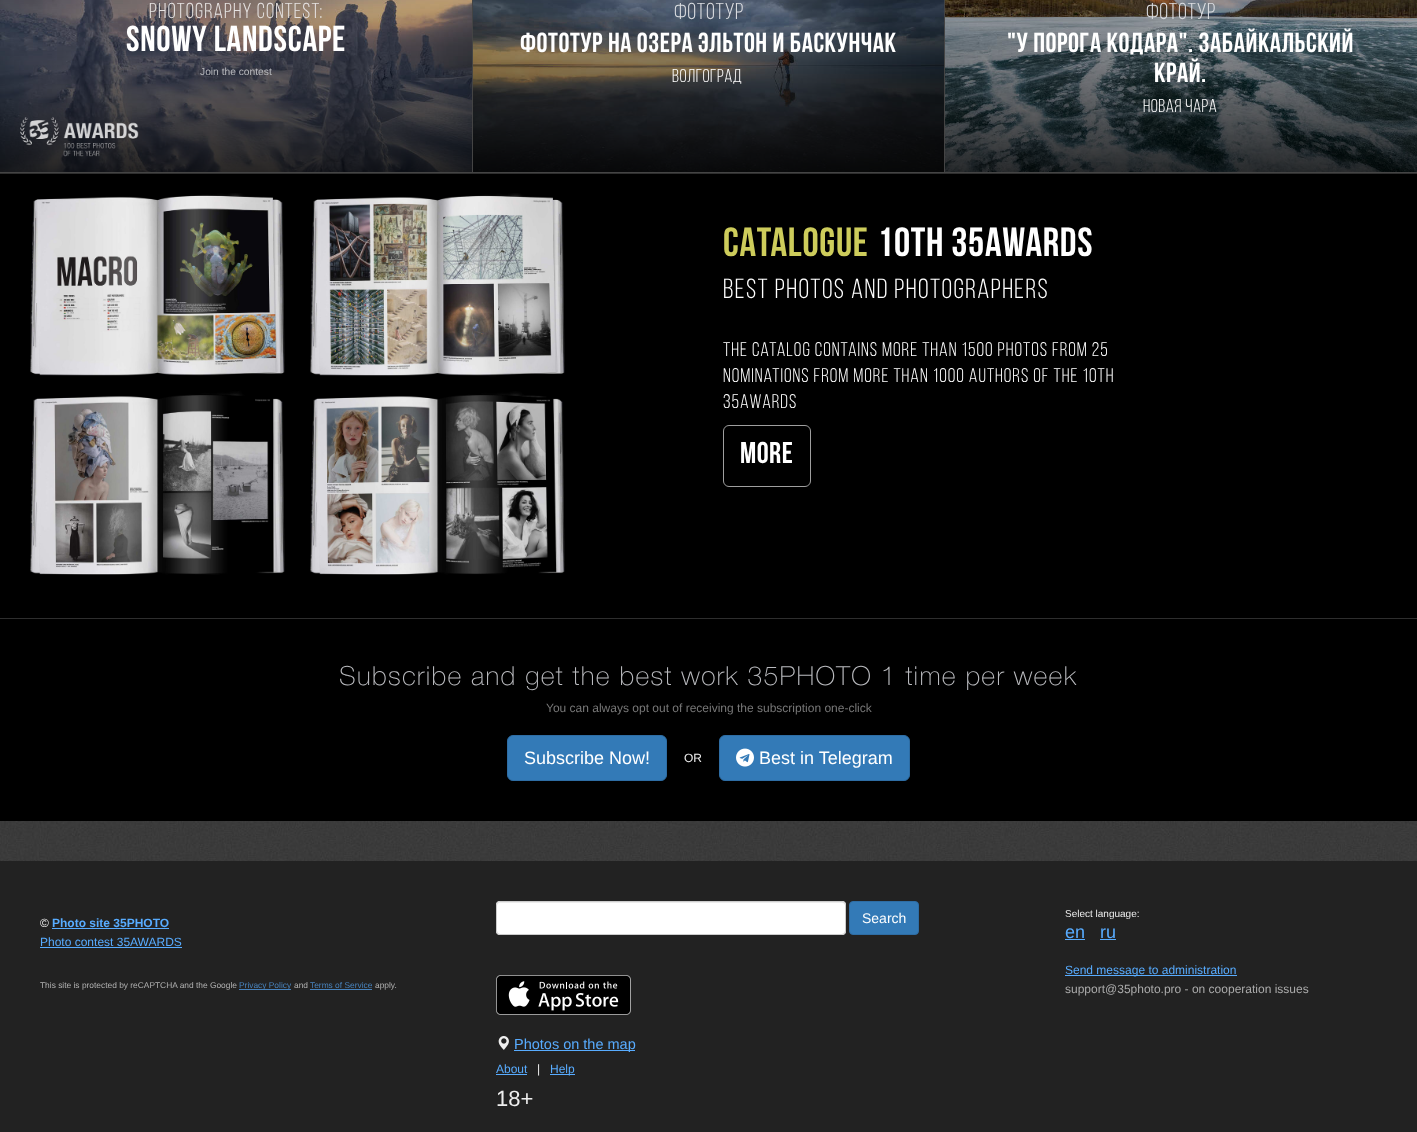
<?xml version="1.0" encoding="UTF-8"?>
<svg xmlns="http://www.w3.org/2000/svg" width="1417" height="1132">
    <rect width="100%" height="100%" fill="#FFFFFF"/>
    <image x="0" y="821" width="1417" height="40" href="img_01.png"/>
    <rect x="0" y="172" width="472" height="1" fill="#444444"/>
    <image x="0" y="0" width="472" height="172" href="img_02.png"/>
    <text x="149" y="18" font-family="Bebas Neue" font-size="21.5" letter-spacing="1.1" fill="#E5E2E1">Photography contest:</text>
    <text x="126" y="51" font-family="Bebas Neue" font-size="36" font-weight="700" letter-spacing="0.75" fill="#FFFFFF">Snowy landscape</text>
    <text x="200" y="75" font-family="Liberation Sans" font-size="10.25" fill="#B9BABE">Join the contest</text>
    <image x="20" y="117" width="119" height="40" href="img_03.png"/>
    <rect x="944" y="0" width="1" height="173" fill="#444444"/>
    <rect x="472" y="172" width="945" height="1" fill="#444444"/>
    <rect x="472" y="0" width="1" height="173" fill="#444444"/>
    <image x="473" y="0" width="471" height="172" href="img_04.png"/>
    <text x="674" y="19" font-family="Bebas Neue" font-size="23" letter-spacing="0.5" fill="#DBDDE1">Фототур</text>
    <text x="520" y="52" font-family="Bebas Neue" font-size="27.6" font-weight="700" letter-spacing="0.55" fill="#FFFFFF">ФОТОТУР НА ОЗЕРА ЭЛЬТОН И БАСКУНЧАК</text>
    <text x="672" y="82" font-family="Bebas Neue" font-size="18.5" letter-spacing="0.5" fill="#FFFFFF">Волгоград</text>
    <image x="945" y="0" width="472" height="172" href="img_05.png"/>
    <text x="1146" y="19" font-family="Bebas Neue" font-size="23" letter-spacing="0.5" fill="#DBDDE1">Фототур</text>
    <text x="1007" y="52" font-family="Bebas Neue" font-size="27.6" font-weight="700" letter-spacing="0.55" fill="#FFFFFF">"У порога Кодара". Забайкальский</text>
    <text x="1154" y="82" font-family="Bebas Neue" font-size="27.6" font-weight="700" letter-spacing="0.55" fill="#FFFFFF">край.</text>
    <text x="1143" y="112" font-family="Bebas Neue" font-size="18.5" letter-spacing="0.5" fill="#FFFFFF">Новая Чара</text>
    <rect x="0" y="174" width="1417" height="444" fill="#000000"/>
    <rect x="0" y="173" width="1417" height="1" fill="#2E2E2E"/>
    <rect x="0" y="618" width="1417" height="1" fill="#2E2E2E"/>
    <image x="30" y="193" width="535" height="382" href="img_06.png"/>
    <text x="723" y="256" font-family="Bebas Neue" font-size="40.75" font-weight="700" letter-spacing="0.75" fill="#CDCC5B">CATALOGUE</text>
    <text x="877" y="256" font-family="Bebas Neue" font-size="40.75" font-weight="700" letter-spacing="0.75" fill="#FFFFFF">10TH 35AWARDS</text>
    <text x="723" y="298" font-family="Bebas Neue" font-size="27.6" letter-spacing="1.4" fill="#FFFFFF">BEST PHOTOS AND PHOTOGRAPHERS</text>
    <text font-family="Bebas Neue" font-size="19.75" letter-spacing="1" fill="#FFFFFF">
        <tspan x="723" y="356">The catalog contains more than 1500 photos from 25</tspan>
        <tspan x="723" y="382">nominations from more than 1000 authors of the 10th</tspan>
        <tspan x="723" y="408">35AWARDS</tspan>
    </text>
    <rect x="723.5" y="425.5" width="87" height="61" rx="5.5" fill="none" stroke="#9E9E9E"/>
    <text x="740" y="463" font-family="Bebas Neue" font-size="30" font-weight="700" letter-spacing="0.5" fill="#FFFFFF">More</text>
    <rect x="0" y="619" width="1417" height="202" fill="#000000"/>
    <text x="339" y="685" font-family="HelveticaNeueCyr" font-size="26.4" font-weight="100" letter-spacing="1.32" fill="#B9BABE">Subscribe and get the best work 35PHOTO 1 time per week</text>
    <text x="546" y="712" font-family="Liberation Sans" font-size="12" fill="#777777">You can always opt out of receiving the subscription one-click</text>
    <rect x="507.5" y="735.5" width="159" height="45" rx="5.5" fill="#337AB7" stroke="#2E6DA4"/>
    <text x="524" y="764" font-family="Liberation Sans" font-size="18" fill="#FFFFFF">Subscribe Now!</text>
    <text x="684" y="762" font-family="Liberation Sans" font-size="12" fill="#EEEEEE">OR</text>
    <rect x="719.5" y="735.5" width="190" height="45" rx="5.5" fill="#337AB7" stroke="#2E6DA4"/>
    <image x="736" y="748" width="18" height="19" href="img_07.png"/>
    <text x="759" y="764" font-family="Liberation Sans" font-size="18" fill="#FFFFFF">Best in Telegram</text>
    <rect x="0" y="861" width="1417" height="271" fill="#222222"/>
    <text x="40" y="927" font-family="Liberation Sans" font-size="12" fill="#EEEEEE">©</text>
    <text x="52" y="927" font-family="Liberation Sans" font-size="12" font-weight="700" fill="#58ACFF">Photo site 35PHOTO</text>
    <rect x="52" y="928" width="117" height="1" fill="#58ACFF"/>
    <text x="40" y="946" font-family="Liberation Sans" font-size="12" fill="#58ACFF">Photo contest 35AWARDS</text>
    <rect x="40" y="947" width="142" height="1" fill="#58ACFF"/>
    <text x="40" y="988" font-family="Liberation Sans" font-size="8.4" fill="#B1B1B1">This site is protected by reCAPTCHA and the Google</text>
    <rect x="239" y="989" width="52" height="1" fill="#4883BD"/>
    <text x="239" y="988" font-family="Liberation Sans" font-size="8.4" fill="#4883BD">Privacy Policy</text>
    <text x="294" y="988" font-family="Liberation Sans" font-size="8.4" fill="#B1B1B1">and</text>
    <text x="310" y="988" font-family="Liberation Sans" font-size="8.4" fill="#4883BD">Terms of Service</text>
    <rect x="310" y="989" width="62" height="1" fill="#4883BD"/>
    <text x="375" y="988" font-family="Liberation Sans" font-size="8.4" fill="#B1B1B1">apply.</text>
    <rect x="496" y="901" width="350" height="34" rx="4" fill="#FFFFFF"/>
    <path d="M 500 903 H 842 C 844 903 845 904 845 906 C 845 904 844 902 842 902 H 500 L 498 903 L 497 906 C 497 904 498 903 500 903 Z" fill="#ECECEC"/>
    <rect x="496.5" y="901.5" width="349" height="33" rx="3.5" fill="none" stroke="#CCCCCC"/>
    <rect x="849.5" y="901.5" width="69" height="33" rx="3.5" fill="#337AB7" stroke="#2E6DA4"/>
    <text x="862" y="923" font-family="Liberation Sans" font-size="14" fill="#FFFFFF">Search</text>
    <image x="496" y="975" width="135" height="40" href="img_08.png"/>
    <image x="498" y="1036" width="11" height="14" href="img_09.png"/>
    <rect x="514" y="1050" width="121" height="1" fill="#58ACFF"/>
    <text x="514" y="1049" font-family="Liberation Sans" font-size="14.5" fill="#58ACFF">Photos on the map</text>
    <text x="496" y="1073" font-family="Liberation Sans" font-size="12" fill="#58ACFF">About</text>
    <rect x="496" y="1074" width="31" height="1" fill="#58ACFF"/>
    <text x="537" y="1073" font-family="Liberation Sans" font-size="12" fill="#EEEEEE">|</text>
    <rect x="550" y="1074" width="25" height="1" fill="#58ACFF"/>
    <text x="550" y="1073" font-family="Liberation Sans" font-size="12" fill="#58ACFF">Help</text>
    <text x="496" y="1106" font-family="Liberation Sans" font-size="22" fill="#EEEEEE">18+</text>
    <text x="1065" y="917" font-family="Liberation Sans" font-size="10" fill="#EEEEEE">Select language:</text>
    <text x="1065" y="938" font-family="Liberation Sans" font-size="18" fill="#58ACFF">en</text>
    <rect x="1065" y="939" width="20" height="1" fill="#58ACFF"/>
    <text x="1100" y="938" font-family="Liberation Sans" font-size="18" fill="#58ACFF">ru</text>
    <rect x="1100" y="939" width="16" height="1" fill="#58ACFF"/>
    <rect x="1065" y="975" width="172" height="1" fill="#58ACFF"/>
    <text x="1065" y="974" font-family="Liberation Sans" font-size="12" fill="#58ACFF">Send message to administration</text>
    <text x="1065" y="993" font-family="Liberation Sans" font-size="12" fill="#AAAAAA">support@35photo.pro - on cooperation issues</text>
</svg>
